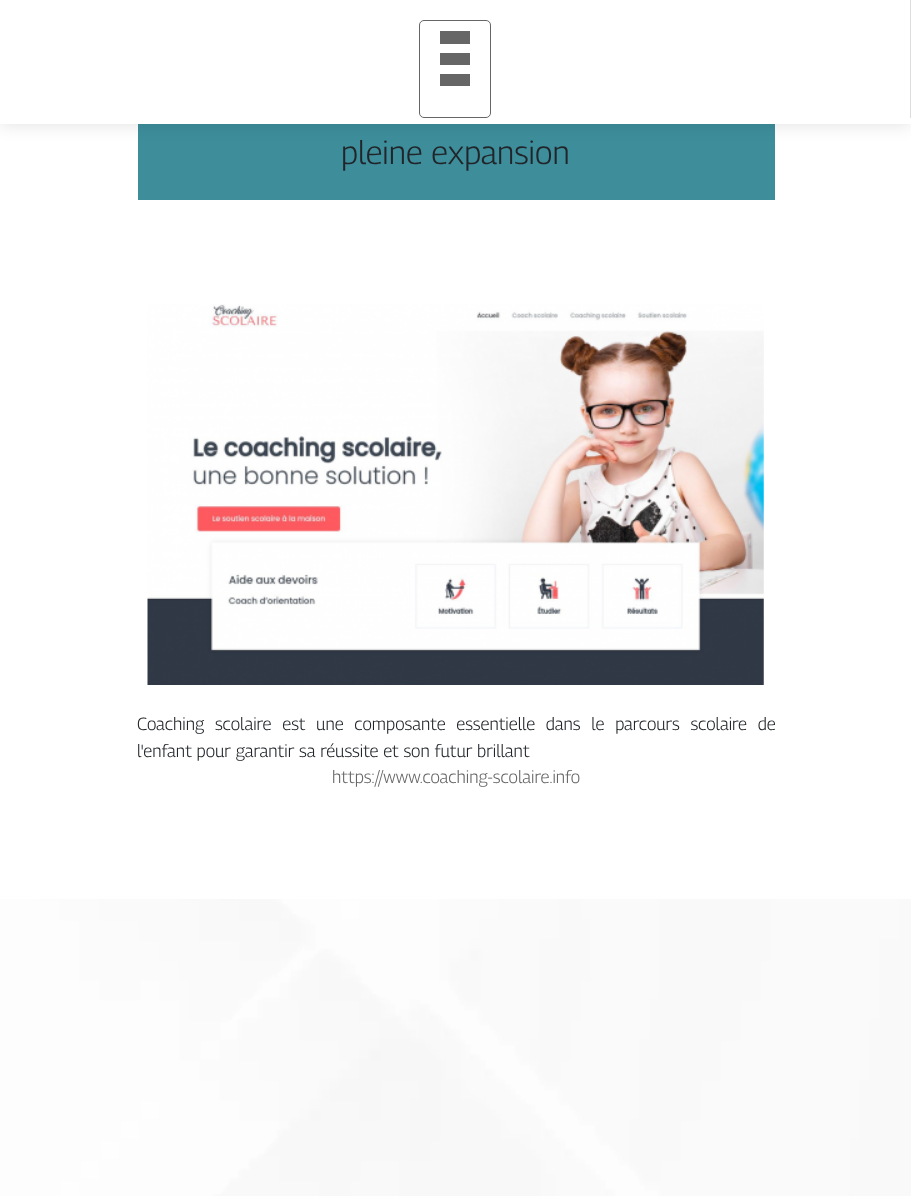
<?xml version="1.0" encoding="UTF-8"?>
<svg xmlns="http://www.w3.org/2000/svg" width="911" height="1196">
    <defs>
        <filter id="blur1" x="-50%" y="-200%" width="200%" height="500%"><feGaussianBlur stdDeviation="8"/></filter>
    </defs>
    <rect width="100%" height="100%" fill="#FFFFFF"/>
    <image x="0" y="899" width="911" height="297" href="img_01.png"/>
    <rect x="138" y="124" width="637" height="76" fill="#3D8D9B"/>
    <rect x="0" y="3" width="911" height="123" fill="#000000" fill-opacity="0.1" filter="url(#blur1)"/>
    <rect x="0" y="118" width="911" height="6" fill="#FFFFFF"/>
    <rect x="0" y="0" width="910" height="118" fill="#FFFFFF"/>
    <rect x="910" y="0" width="1" height="118" fill="#DDDDDD"/>
    <rect x="419.5" y="20.5" width="71" height="97" rx="4.5" fill="none" stroke="#666666"/>
    <rect x="440" y="31" width="30" height="13" fill="#666666"/>
    <rect x="440" y="53" width="30" height="12" fill="#666666"/>
    <rect x="440" y="74" width="30" height="12" fill="#666666"/>
    <text x="341" y="164" font-family="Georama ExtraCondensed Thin" font-size="32.5" font-weight="100" fill="#212529">pleine expansion</text>
    <image x="147" y="304" width="617" height="381" href="img_02.png"/>
    <text font-family="Georama ExtraCondensed Thin" font-size="17.5" font-weight="100" fill="#212529">
        <tspan x="137" y="730" word-spacing="6">Coaching scolaire est une composante essentielle dans le parcours scolaire de</tspan>
        <tspan x="137" y="757">l'enfant pour garantir sa réussite et son futur brillant</tspan>
    </text>
    <text x="332" y="783" font-family="Georama ExtraCondensed Thin" font-size="17.5" font-weight="100" fill="#666666">https://www.coaching-scolaire.info</text>
</svg>
